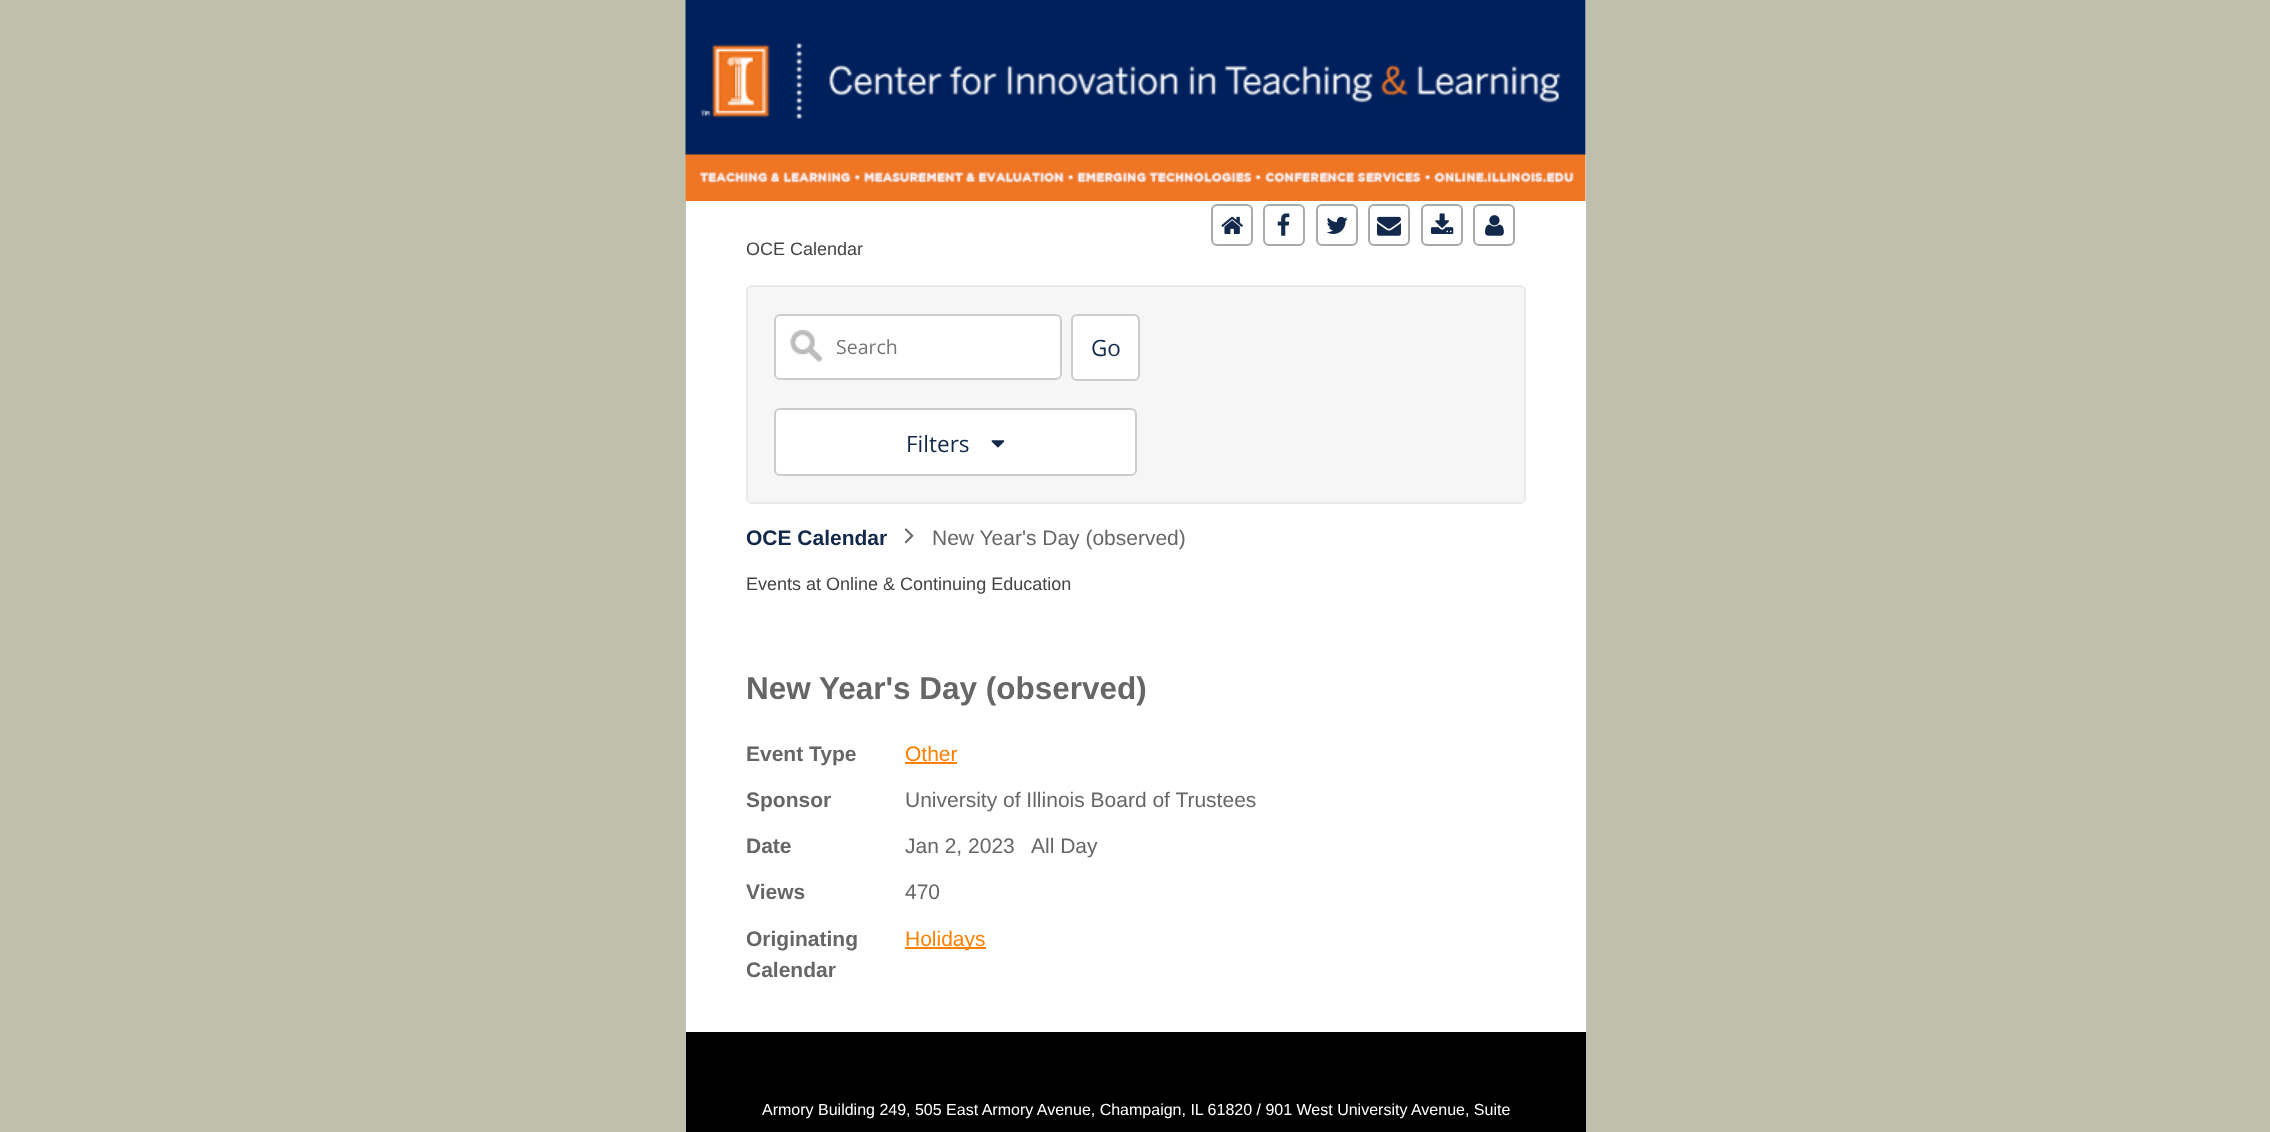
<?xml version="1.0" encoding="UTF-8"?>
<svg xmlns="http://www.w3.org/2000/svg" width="2270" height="1132">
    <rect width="100%" height="100%" fill="#BFBFAE"/>
    <rect x="686" y="0" width="900" height="1032" fill="#FFFFFF"/>
    <image x="685" y="0" width="901" height="201" href="img_01.png"/>
    <text x="746" y="255" font-family="Liberation Sans" font-size="18" fill="#444444">OCE Calendar</text>
    <rect x="1212" y="205" width="40" height="40" rx="5" fill="none" stroke="#AAAAAA" stroke-width="2"/>
    <image x="1221" y="216" width="22" height="18" href="img_02.png"/>
    <rect x="1264" y="205" width="40" height="40" rx="5" fill="none" stroke="#AAAAAA" stroke-width="2"/>
    <image x="1277" y="213" width="13" height="23" href="img_03.png"/>
    <rect x="1317" y="205" width="40" height="40" rx="5" fill="none" stroke="#AAAAAA" stroke-width="2"/>
    <image x="1326" y="216" width="22" height="18" href="img_04.png"/>
    <rect x="1369" y="205" width="40" height="40" rx="5" fill="none" stroke="#AAAAAA" stroke-width="2"/>
    <image x="1377" y="216" width="24" height="20" href="img_05.png"/>
    <rect x="1422" y="205" width="40" height="40" rx="5" fill="none" stroke="#AAAAAA" stroke-width="2"/>
    <image x="1431" y="213" width="23" height="21" href="img_06.png"/>
    <rect x="1474" y="205" width="40" height="40" rx="5" fill="none" stroke="#AAAAAA" stroke-width="2"/>
    <image x="1485" y="215" width="19" height="21" href="img_07.png"/>
    <rect x="747" y="286" width="778" height="217" rx="5" fill="#F6F6F6" stroke="#E9E9E9" stroke-width="2"/>
    <rect x="774" y="314" width="288" height="66" rx="6" fill="#FFFFFF"/>
    <image x="790" y="330" width="32" height="32" href="img_08.png"/>
    <rect x="775" y="315" width="286" height="64" rx="5" fill="none" stroke="#CCCCCC" stroke-width="2"/>
    <text x="836" y="354" font-family="Open Sans" font-size="19.5" fill="#757575">Search</text>
    <rect x="1072" y="315" width="67" height="65" rx="5" fill="#FFFFFF" stroke="#CCCCCC" stroke-width="2"/>
    <text x="1091" y="356" font-family="Open Sans" font-size="22.5" fill="#13294B">Go</text>
    <rect x="775" y="409" width="361" height="66" rx="5" fill="#FFFFFF" stroke="#CCCCCC" stroke-width="2"/>
    <text x="906" y="452" font-family="Open Sans" font-size="22.5" fill="#13294B">Filters</text>
    <image x="991" y="440" width="14" height="8" href="img_09.png"/>
    <text x="746" y="545" font-family="Liberation Sans" font-size="21" font-weight="700" fill="#13294B">OCE Calendar</text>
    <image x="904" y="528" width="10" height="16" href="img_10.png"/>
    <text x="932" y="545" font-family="Liberation Sans" font-size="21" fill="#666666">New Year's Day (observed)</text>
    <text x="746" y="590" font-family="Liberation Sans" font-size="18" fill="#444444">Events at Online &amp; Continuing Education</text>
    <text x="746" y="699" font-family="Liberation Sans" font-size="31.5" font-weight="700" fill="#666666">New Year's Day (observed)</text>
    <text x="746" y="761" font-family="Liberation Sans" font-size="21" font-weight="700" fill="#666666">Event Type</text>
    <text x="905" y="761" font-family="Liberation Sans" font-size="21" fill="#FF7F00">Other</text>
    <rect x="905" y="762" width="52" height="2" fill="#FF7F00"/>
    <text x="746" y="807" font-family="Liberation Sans" font-size="21" font-weight="700" fill="#666666">Sponsor</text>
    <text x="905" y="807" font-family="Liberation Sans" font-size="21" fill="#666666">University of Illinois Board of Trustees</text>
    <text x="746" y="853" font-family="Liberation Sans" font-size="21" font-weight="700" fill="#666666">Date</text>
    <text x="905" y="853" font-family="Liberation Sans" font-size="21" fill="#666666">Jan 2, 2023</text>
    <text x="1031" y="853" font-family="Liberation Sans" font-size="21" fill="#666666">All Day</text>
    <text x="746" y="899" font-family="Liberation Sans" font-size="21" font-weight="700" fill="#666666">Views</text>
    <text x="905" y="899" font-family="Liberation Sans" font-size="21" fill="#666666">470</text>
    <text font-family="Liberation Sans" font-size="21" font-weight="700" fill="#666666">
        <tspan x="746" y="946">Originating</tspan>
        <tspan x="746" y="977">Calendar</tspan>
    </text>
    <rect x="905" y="947" width="81" height="2" fill="#FF7F00"/>
    <text x="905" y="946" font-family="Liberation Sans" font-size="21" fill="#FF7F00">Holidays</text>
    <rect x="686" y="1032" width="900" height="100" fill="#000000"/>
    <text x="762" y="1115" font-family="Liberation Sans" font-size="16" fill="#FFFFFF">Armory Building 249, 505 East Armory Avenue, Champaign, IL 61820 / 901 West University Avenue, Suite</text>
</svg>
